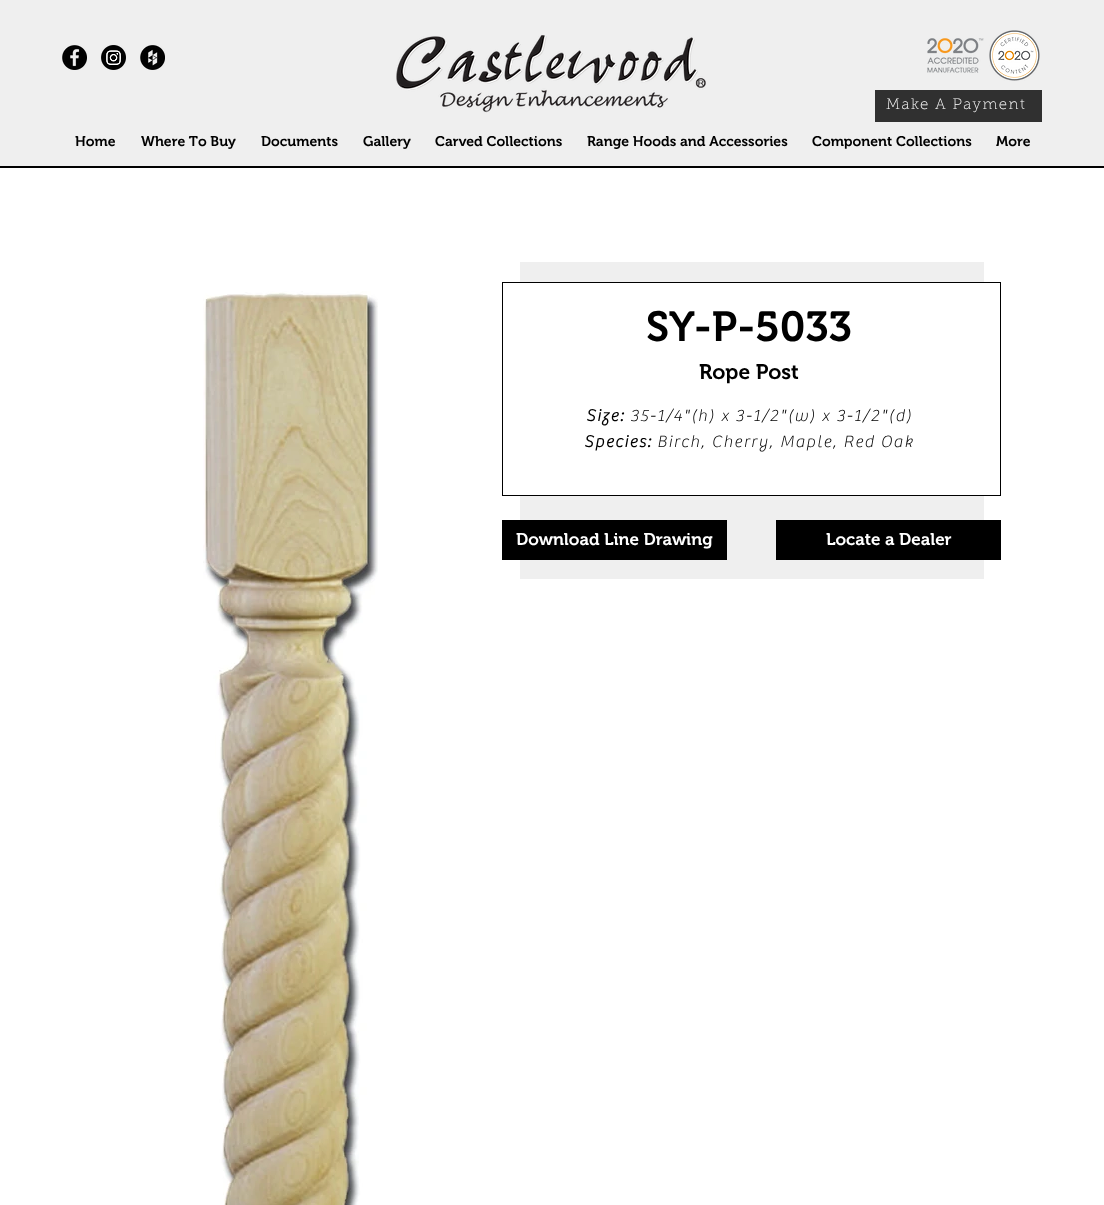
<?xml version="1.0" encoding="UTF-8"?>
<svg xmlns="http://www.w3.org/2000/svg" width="1104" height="1205">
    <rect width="100%" height="100%" fill="#FFFFFF"/>
    <rect x="0" y="0" width="1104" height="166" fill="#EFEFEF"/>
    <rect x="0" y="166" width="1104" height="2" fill="#000000"/>
    <image x="62" y="45" width="25" height="25" href="img_01.png"/>
    <image x="101" y="45" width="25" height="25" href="img_02.png"/>
    <image x="140" y="45" width="25" height="25" href="img_03.png"/>
    <image x="396" y="35" width="310" height="78" href="img_04.png"/>
    <image x="927" y="38" width="57" height="35" href="img_05.png"/>
    <image x="989" y="30" width="51" height="51" href="img_06.png"/>
    <rect x="875" y="90" width="167" height="32" fill="#303030"/>
    <text x="886" y="109" font-family="'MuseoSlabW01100'" font-size="15" font-weight="100" letter-spacing="1.5" fill="#FFFFFF">Make A Payment</text>
    <text x="75" y="146" font-family="'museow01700'" font-size="14" font-weight="600" fill="#000000">Home</text>
    <text x="141" y="146" font-family="'museow01700'" font-size="14" font-weight="600" fill="#000000">Where To Buy</text>
    <text x="261" y="146" font-family="'museow01700'" font-size="14" font-weight="600" fill="#000000">Documents</text>
    <text x="363" y="146" font-family="'museow01700'" font-size="14" font-weight="600" fill="#000000">Gallery</text>
    <text x="435" y="146" font-family="'museow01700'" font-size="14" font-weight="600" fill="#000000">Carved Collections</text>
    <text x="587" y="146" font-family="'museow01700'" font-size="14" font-weight="600" fill="#000000">Range Hoods and Accessories</text>
    <text x="812" y="146" font-family="'museow01700'" font-size="14" font-weight="600" fill="#000000">Component Collections</text>
    <text x="996" y="146" font-family="'museow01700'" font-size="14" font-weight="600" fill="#000000">More</text>
    <image x="203" y="291" width="175" height="914" href="img_07.png"/>
    <rect x="520" y="262" width="464" height="317" fill="#EFEFEF"/>
    <rect x="520" y="283" width="464" height="212" fill="#FFFFFF"/>
    <rect x="502.5" y="282.5" width="498" height="213" fill="none" stroke="#000000"/>
    <text x="646" y="341" font-family="'museow01700'" font-size="42" font-weight="600" fill="#000000">SY-P-5033</text>
    <text x="699" y="379" font-family="'museow01700'" font-size="21" font-weight="600" fill="#000000">Rope Post</text>
    <text x="586" y="421" font-family="'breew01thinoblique'" font-size="17" font-weight="700" letter-spacing="1.7" fill="#000000">Size:</text>
    <text x="630" y="421" font-family="'breew01thinoblique'" font-size="17" font-weight="100" letter-spacing="1.7" fill="#000000">35-1/4"(h) x 3-1/2"(w) x 3-1/2"(d)</text>
    <text x="584" y="447" font-family="'breew01thinoblique'" font-size="17" font-weight="700" letter-spacing="1.7" fill="#000000">Species:</text>
    <text x="657" y="447" font-family="'breew01thinoblique'" font-size="17" font-weight="100" letter-spacing="1.7" fill="#000000">Birch, Cherry, Maple, Red Oak</text>
    <rect x="502" y="520" width="225" height="40" fill="#000000"/>
    <text x="516" y="545" font-family="'museow01700'" font-size="17" font-weight="600" fill="#FFFFFF">Download Line Drawing</text>
    <rect x="776" y="520" width="225" height="40" fill="#000000"/>
    <text x="826" y="545" font-family="'museow01700'" font-size="17" font-weight="600" fill="#FFFFFF">Locate a Dealer</text>
</svg>
